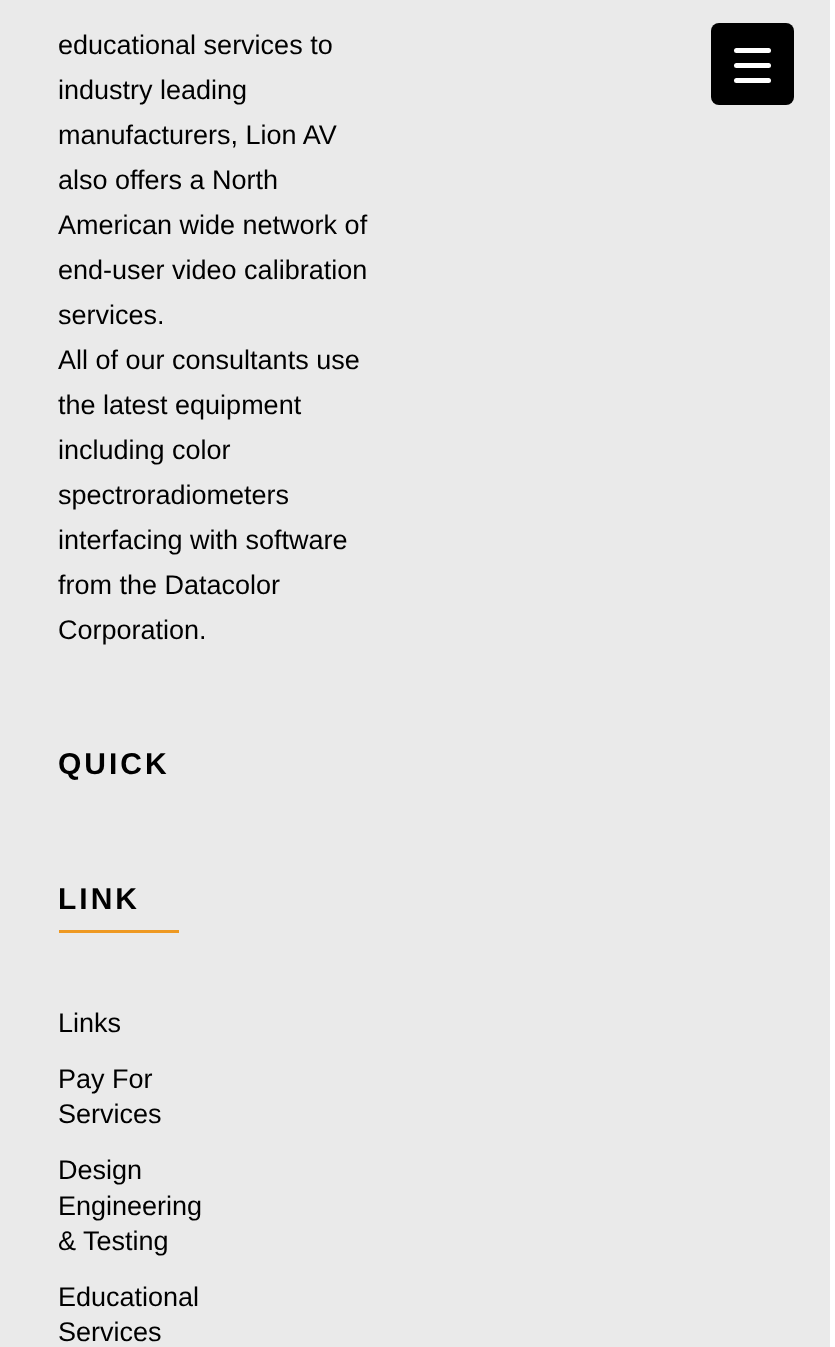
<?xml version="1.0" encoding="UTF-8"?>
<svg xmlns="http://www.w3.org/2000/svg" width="835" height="1347">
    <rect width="100%" height="100%" fill="#FFFFFF"/>
    <rect x="0" y="0" width="830" height="1347" fill="#EAEAEA"/>
    <text font-family="Liberation Sans" font-size="27" fill="#000000">
        <tspan x="58" y="54">educational services to</tspan>
        <tspan x="58" y="99">industry leading</tspan>
        <tspan x="58" y="144">manufacturers, Lion AV</tspan>
        <tspan x="58" y="189">also offers a North</tspan>
        <tspan x="58" y="234">American wide network of</tspan>
        <tspan x="58" y="279">end-user video calibration</tspan>
        <tspan x="58" y="324">services.</tspan>
        <tspan x="58" y="369">All of our consultants use</tspan>
        <tspan x="58" y="414">the latest equipment</tspan>
        <tspan x="58" y="459">including color</tspan>
        <tspan x="58" y="504">spectroradiometers</tspan>
        <tspan x="58" y="549">interfacing with software</tspan>
        <tspan x="58" y="594">from the Datacolor</tspan>
        <tspan x="58" y="639">Corporation.</tspan>
    </text>
    <text x="58" y="774" font-family="Liberation Sans" font-size="30" font-weight="700" letter-spacing="3" fill="#000000">QUICK</text>
    <text x="58" y="909" font-family="Liberation Sans" font-size="30" font-weight="700" letter-spacing="3" fill="#000000">LINK</text>
    <rect x="59" y="930" width="120" height="3" fill="#EE9922"/>
    <text x="58" y="1032" font-family="Liberation Sans" font-size="27" fill="#000000">Links</text>
    <text font-family="Liberation Sans" font-size="27" fill="#000000">
        <tspan x="58" y="1088">Pay For</tspan>
        <tspan x="58" y="1123">Services</tspan>
    </text>
    <text font-family="Liberation Sans" font-size="27" fill="#000000">
        <tspan x="58" y="1179">Design</tspan>
        <tspan x="58" y="1215">Engineering</tspan>
        <tspan x="58" y="1250">&amp; Testing</tspan>
    </text>
    <text font-family="Liberation Sans" font-size="27" fill="#000000">
        <tspan x="58" y="1306">Educational</tspan>
        <tspan x="58" y="1341">Services</tspan>
    </text>
    <rect x="711" y="23" width="83" height="82" rx="8" fill="#000000"/>
    <rect x="734" y="63" width="37" height="5" rx="2.5" fill="#FFFFFF"/>
    <rect x="734" y="48" width="37" height="5" rx="2.5" fill="#FFFFFF"/>
    <rect x="734" y="78" width="37" height="5" rx="2.5" fill="#FFFFFF"/>
</svg>
